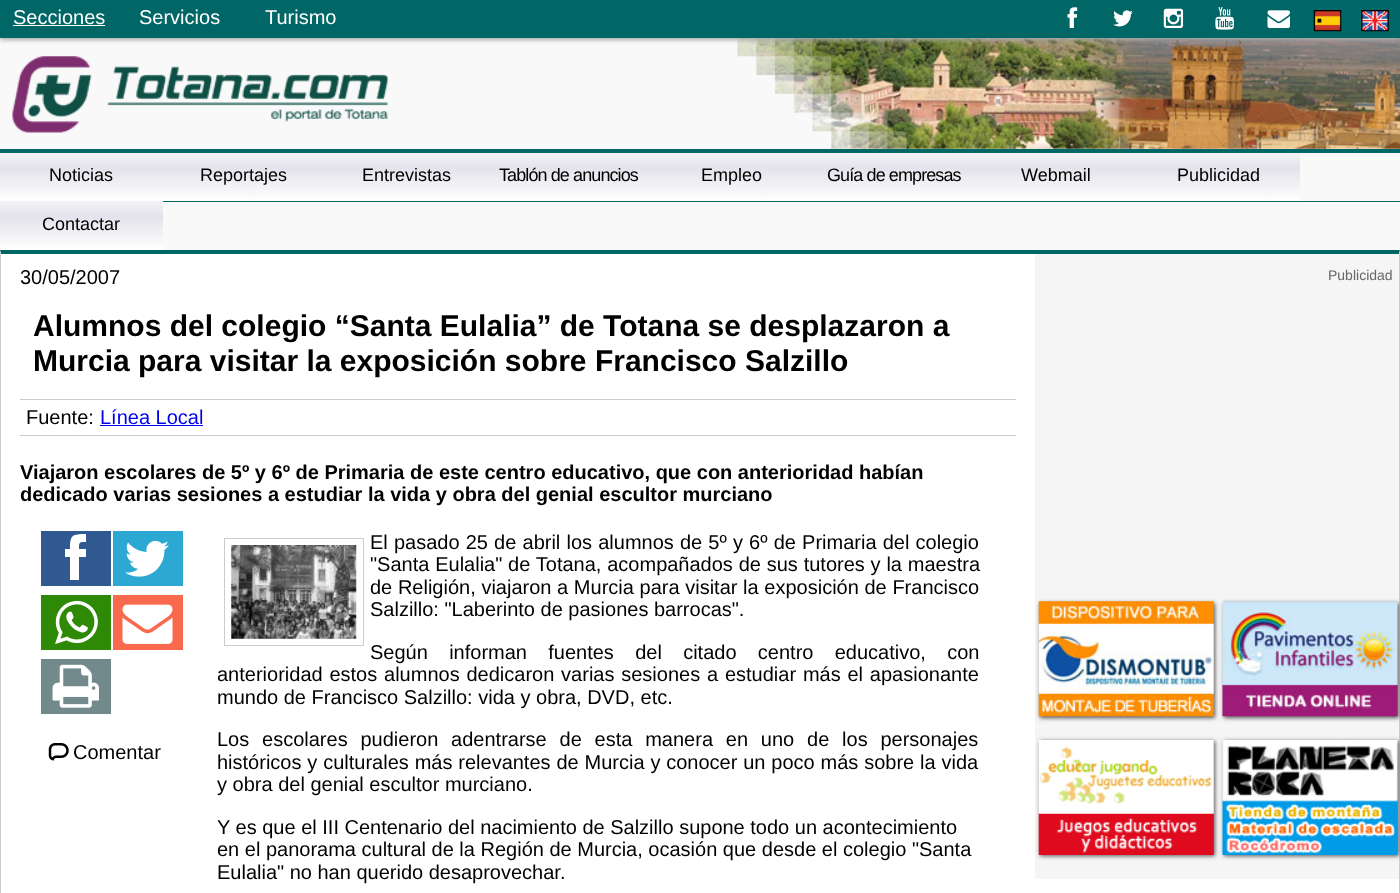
<?xml version="1.0" encoding="UTF-8"?>
<svg xmlns="http://www.w3.org/2000/svg" width="1400" height="893">
    <defs>
        <filter id="blur1" x="-50%" y="-200%" width="200%" height="500%"><feGaussianBlur stdDeviation="2"/></filter>
        <linearGradient id="g1" gradientUnits="userSpaceOnUse" x1="81" y1="153" x2="81" y2="201"><stop offset="0" stop-color="#F2F2F6"/><stop offset="0.32" stop-color="#E3E3EB"/><stop offset="1" stop-color="#FFFFFF"/></linearGradient>
        <linearGradient id="g2" gradientUnits="userSpaceOnUse" x1="244" y1="153" x2="244" y2="201"><stop offset="0" stop-color="#F2F2F6"/><stop offset="0.32" stop-color="#E3E3EB"/><stop offset="1" stop-color="#FFFFFF"/></linearGradient>
        <linearGradient id="g3" gradientUnits="userSpaceOnUse" x1="406" y1="153" x2="406" y2="201"><stop offset="0" stop-color="#F2F2F6"/><stop offset="0.32" stop-color="#E3E3EB"/><stop offset="1" stop-color="#FFFFFF"/></linearGradient>
        <linearGradient id="g4" gradientUnits="userSpaceOnUse" x1="569" y1="153" x2="569" y2="201"><stop offset="0" stop-color="#F2F2F6"/><stop offset="0.32" stop-color="#E3E3EB"/><stop offset="1" stop-color="#FFFFFF"/></linearGradient>
        <linearGradient id="g5" gradientUnits="userSpaceOnUse" x1="731" y1="153" x2="731" y2="201"><stop offset="0" stop-color="#F2F2F6"/><stop offset="0.32" stop-color="#E3E3EB"/><stop offset="1" stop-color="#FFFFFF"/></linearGradient>
        <linearGradient id="g6" gradientUnits="userSpaceOnUse" x1="894" y1="153" x2="894" y2="201"><stop offset="0" stop-color="#F2F2F6"/><stop offset="0.32" stop-color="#E3E3EB"/><stop offset="1" stop-color="#FFFFFF"/></linearGradient>
        <linearGradient id="g7" gradientUnits="userSpaceOnUse" x1="1056" y1="153" x2="1056" y2="201"><stop offset="0" stop-color="#F2F2F6"/><stop offset="0.32" stop-color="#E3E3EB"/><stop offset="1" stop-color="#FFFFFF"/></linearGradient>
        <linearGradient id="g8" gradientUnits="userSpaceOnUse" x1="1219" y1="153" x2="1219" y2="201"><stop offset="0" stop-color="#F2F2F6"/><stop offset="0.32" stop-color="#E3E3EB"/><stop offset="1" stop-color="#FFFFFF"/></linearGradient>
        <linearGradient id="g9" gradientUnits="userSpaceOnUse" x1="81" y1="201" x2="81" y2="250"><stop offset="0" stop-color="#F2F2F6"/><stop offset="0.32" stop-color="#E3E3EB"/><stop offset="1" stop-color="#FFFFFF"/></linearGradient>
    </defs>
    <rect width="100%" height="100%" fill="#F9F9F9"/>
    <image x="737" y="38" width="663" height="111" href="img_01.png"/>
    <rect x="0" y="3" width="1400" height="37" fill="#AAAAAA" filter="url(#blur1)"/>
    <rect x="0" y="0" width="1400" height="38" fill="#006666"/>
    <text x="13" y="24" font-family="Liberation Sans" font-size="20" fill="#FFFFFF">Secciones</text>
    <rect x="13" y="25" width="92" height="1" fill="#FFFFFF"/>
    <text x="139" y="24" font-family="Liberation Sans" font-size="20" fill="#FFFFFF">Servicios</text>
    <text x="265" y="24" font-family="Liberation Sans" font-size="20" fill="#FFFFFF">Turismo</text>
    <image x="12" y="56" width="376" height="77" href="img_02.png"/>
    <rect x="0" y="149" width="1400" height="4" fill="#006666"/>
    <rect x="163" y="201" width="1237" height="1" fill="#006666"/>
    <image x="1067" y="7" width="11" height="21" href="img_03.png"/>
    <image x="1113" y="10" width="20" height="17" href="img_04.png"/>
    <image x="1163" y="8" width="21" height="20" href="img_05.png"/>
    <image x="1215" y="7" width="19" height="23" href="img_06.png"/>
    <image x="1267" y="10" width="23" height="18" href="img_07.png"/>
    <image x="1313" y="10" width="29" height="22" href="img_08.png"/>
    <image x="1361" y="10" width="28" height="22" href="img_09.png"/>
    <rect x="0" y="153" width="163" height="48" fill="url(#g1)"/>
    <text x="49" y="181" font-family="Liberation Sans" font-size="18" fill="#000000">Noticias</text>
    <rect x="163" y="153" width="162" height="48" fill="url(#g2)"/>
    <text x="200" y="181" font-family="Liberation Sans" font-size="18" fill="#000000">Reportajes</text>
    <rect x="325" y="153" width="163" height="48" fill="url(#g3)"/>
    <text x="362" y="181" font-family="Liberation Sans" font-size="18" fill="#000000">Entrevistas</text>
    <rect x="488" y="153" width="162" height="48" fill="url(#g4)"/>
    <text x="499" y="181" font-family="Liberation Sans" font-size="18" letter-spacing="-0.9" fill="#000000">Tablón de anuncios</text>
    <rect x="650" y="153" width="163" height="48" fill="url(#g5)"/>
    <text x="701" y="181" font-family="Liberation Sans" font-size="18" fill="#000000">Empleo</text>
    <rect x="813" y="153" width="162" height="48" fill="url(#g6)"/>
    <text x="827" y="181" font-family="Liberation Sans" font-size="18" letter-spacing="-0.9" fill="#000000">Guía de empresas</text>
    <rect x="975" y="153" width="163" height="48" fill="url(#g7)"/>
    <text x="1021" y="181" font-family="Liberation Sans" font-size="18" fill="#000000">Webmail</text>
    <rect x="1138" y="153" width="162" height="48" fill="url(#g8)"/>
    <text x="1177" y="181" font-family="Liberation Sans" font-size="18" fill="#000000">Publicidad</text>
    <rect x="0" y="201" width="163" height="49" fill="url(#g9)"/>
    <text x="42" y="230" font-family="Liberation Sans" font-size="18" fill="#000000">Contactar</text>
    <rect x="0" y="250" width="1400" height="643" fill="#FFFFFF"/>
    <path d="M 0 250 H 1400 L 1399 254 H 1 Z" fill="#006666"/>
    <path d="M 1400 250 V 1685 H 1399 V 254 Z" fill="#CCCCCC"/>
    <path d="M 0 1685 V 250 L 1 254 V 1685 Z" fill="#CCCCCC"/>
    <text x="20" y="284" font-family="Liberation Sans" font-size="20" fill="#000000">30/05/2007</text>
    <text font-family="Liberation Sans" font-size="30" font-weight="700" fill="#000000">
        <tspan x="33" y="336">Alumnos del colegio “Santa Eulalia” de Totana se desplazaron a</tspan>
        <tspan x="33" y="371">Murcia para visitar la exposición sobre Francisco Salzillo</tspan>
    </text>
    <rect x="20" y="399" width="996" height="1" fill="#CCCCCC"/>
    <rect x="20" y="435" width="996" height="1" fill="#CCCCCC"/>
    <text x="26" y="424" font-family="Liberation Sans" font-size="20" fill="#000000">Fuente:</text>
    <text x="100" y="424" font-family="Liberation Sans" font-size="20" fill="#0000EE">Línea Local</text>
    <rect x="100" y="425" width="103" height="1" fill="#0000EE"/>
    <text font-family="Liberation Sans" font-size="20" font-weight="700" fill="#000000">
        <tspan x="20" y="479">Viajaron escolares de 5º y 6º de Primaria de este centro educativo, que con anterioridad habían</tspan>
        <tspan x="20" y="501">dedicado varias sesiones a estudiar la vida y obra del genial escultor murciano</tspan>
    </text>
    <rect x="41" y="531" width="70" height="55" fill="#305891"/>
    <path d="M 79 549 H 86 V 557 H 79 V 580 H 70 V 557 H 65 V 549 H 70 C 70 535 72 534 86 534 V 542 C 79 542 79 542 79 549 Z" fill="#FFFFFF"/>
    <rect x="113" y="531" width="70" height="55" fill="#2CA8D2"/>
    <image x="125" y="540" width="44" height="37" href="img_10.png"/>
    <rect x="41" y="595" width="70" height="55" fill="#2E8A06"/>
    <image x="55" y="600" width="43" height="44" href="img_11.png"/>
    <rect x="113" y="595" width="70" height="55" fill="#F8694D"/>
    <image x="122" y="604" width="51" height="40" href="img_12.png"/>
    <rect x="41" y="659" width="70" height="55" fill="#738A8D"/>
    <image x="52" y="664" width="47" height="44" href="img_13.png"/>
    <image x="48" y="743" width="21" height="18" href="img_14.png"/>
    <text x="73" y="759" font-family="Liberation Sans" font-size="20" fill="#000000">Comentar</text>
    <text font-family="Liberation Sans" font-size="20" fill="#000000">
        <tspan x="370" y="549" word-spacing="0.6">El pasado 25 de abril los alumnos de 5º y 6º de Primaria del colegio</tspan>
        <tspan x="370" y="571" word-spacing="0.25">"Santa Eulalia" de Totana, acompañados de sus tutores y la maestra</tspan>
        <tspan x="370" y="594" word-spacing="0.1">de Religión, viajaron a Murcia para visitar la exposición de Francisco</tspan>
        <tspan x="370" y="616">Salzillo: "Laberinto de pasiones barrocas".</tspan>
    </text>
    <text x="370" y="659" word-spacing="15.75" font-family="Liberation Sans" font-size="20" fill="#000000">Según informan fuentes del citado centro educativo, con</text>
    <text font-family="Liberation Sans" font-size="20" fill="#000000">
        <tspan x="217" y="681" word-spacing="1.25">anterioridad estos alumnos dedicaron varias sesiones a estudiar más el apasionante</tspan>
        <tspan x="217" y="704">mundo de Francisco Salzillo: vida y obra, DVD, etc.</tspan>
    </text>
    <text font-family="Liberation Sans" font-size="20" fill="#000000">
        <tspan x="217" y="746" word-spacing="7.25">Los escolares pudieron adentrarse de esta manera en uno de los personajes</tspan>
        <tspan x="217" y="769" word-spacing="0.3">históricos y culturales más relevantes de Murcia y conocer un poco más sobre la vida</tspan>
        <tspan x="217" y="791">y obra del genial escultor murciano.</tspan>
    </text>
    <text font-family="Liberation Sans" font-size="20" fill="#000000">
        <tspan x="217" y="834">Y es que el III Centenario del nacimiento de Salzillo supone todo un acontecimiento</tspan>
        <tspan x="217" y="856">en el panorama cultural de la Región de Murcia, ocasión que desde el colegio "Santa</tspan>
        <tspan x="217" y="879">Eulalia" no han querido desaprovechar.</tspan>
    </text>
    <rect x="224.5" y="538.5" width="139" height="107" fill="none" stroke="#CCCCCC"/>
    <image x="231" y="545" width="126" height="94" href="img_15.png"/>
    <rect x="1035" y="254" width="364" height="625" fill="#F5F5F5"/>
    <text x="1328" y="280" font-family="Liberation Sans" font-size="14" fill="#666666">Publicidad</text>
    <rect x="1040" y="603" width="175" height="115" fill="#555555" filter="url(#blur1)"/>
    <rect x="1224" y="603" width="175" height="115" fill="#555555" filter="url(#blur1)"/>
    <image x="1038" y="601" width="176" height="116" href="img_16.png"/>
    <image x="1222" y="601" width="176" height="116" href="img_17.png"/>
    <rect x="1040" y="741" width="175" height="115" fill="#555555" filter="url(#blur1)"/>
    <rect x="1224" y="741" width="175" height="115" fill="#555555" filter="url(#blur1)"/>
    <image x="1038" y="740" width="176" height="115" href="img_18.png"/>
    <image x="1222" y="740" width="176" height="115" href="img_19.png"/>
</svg>
